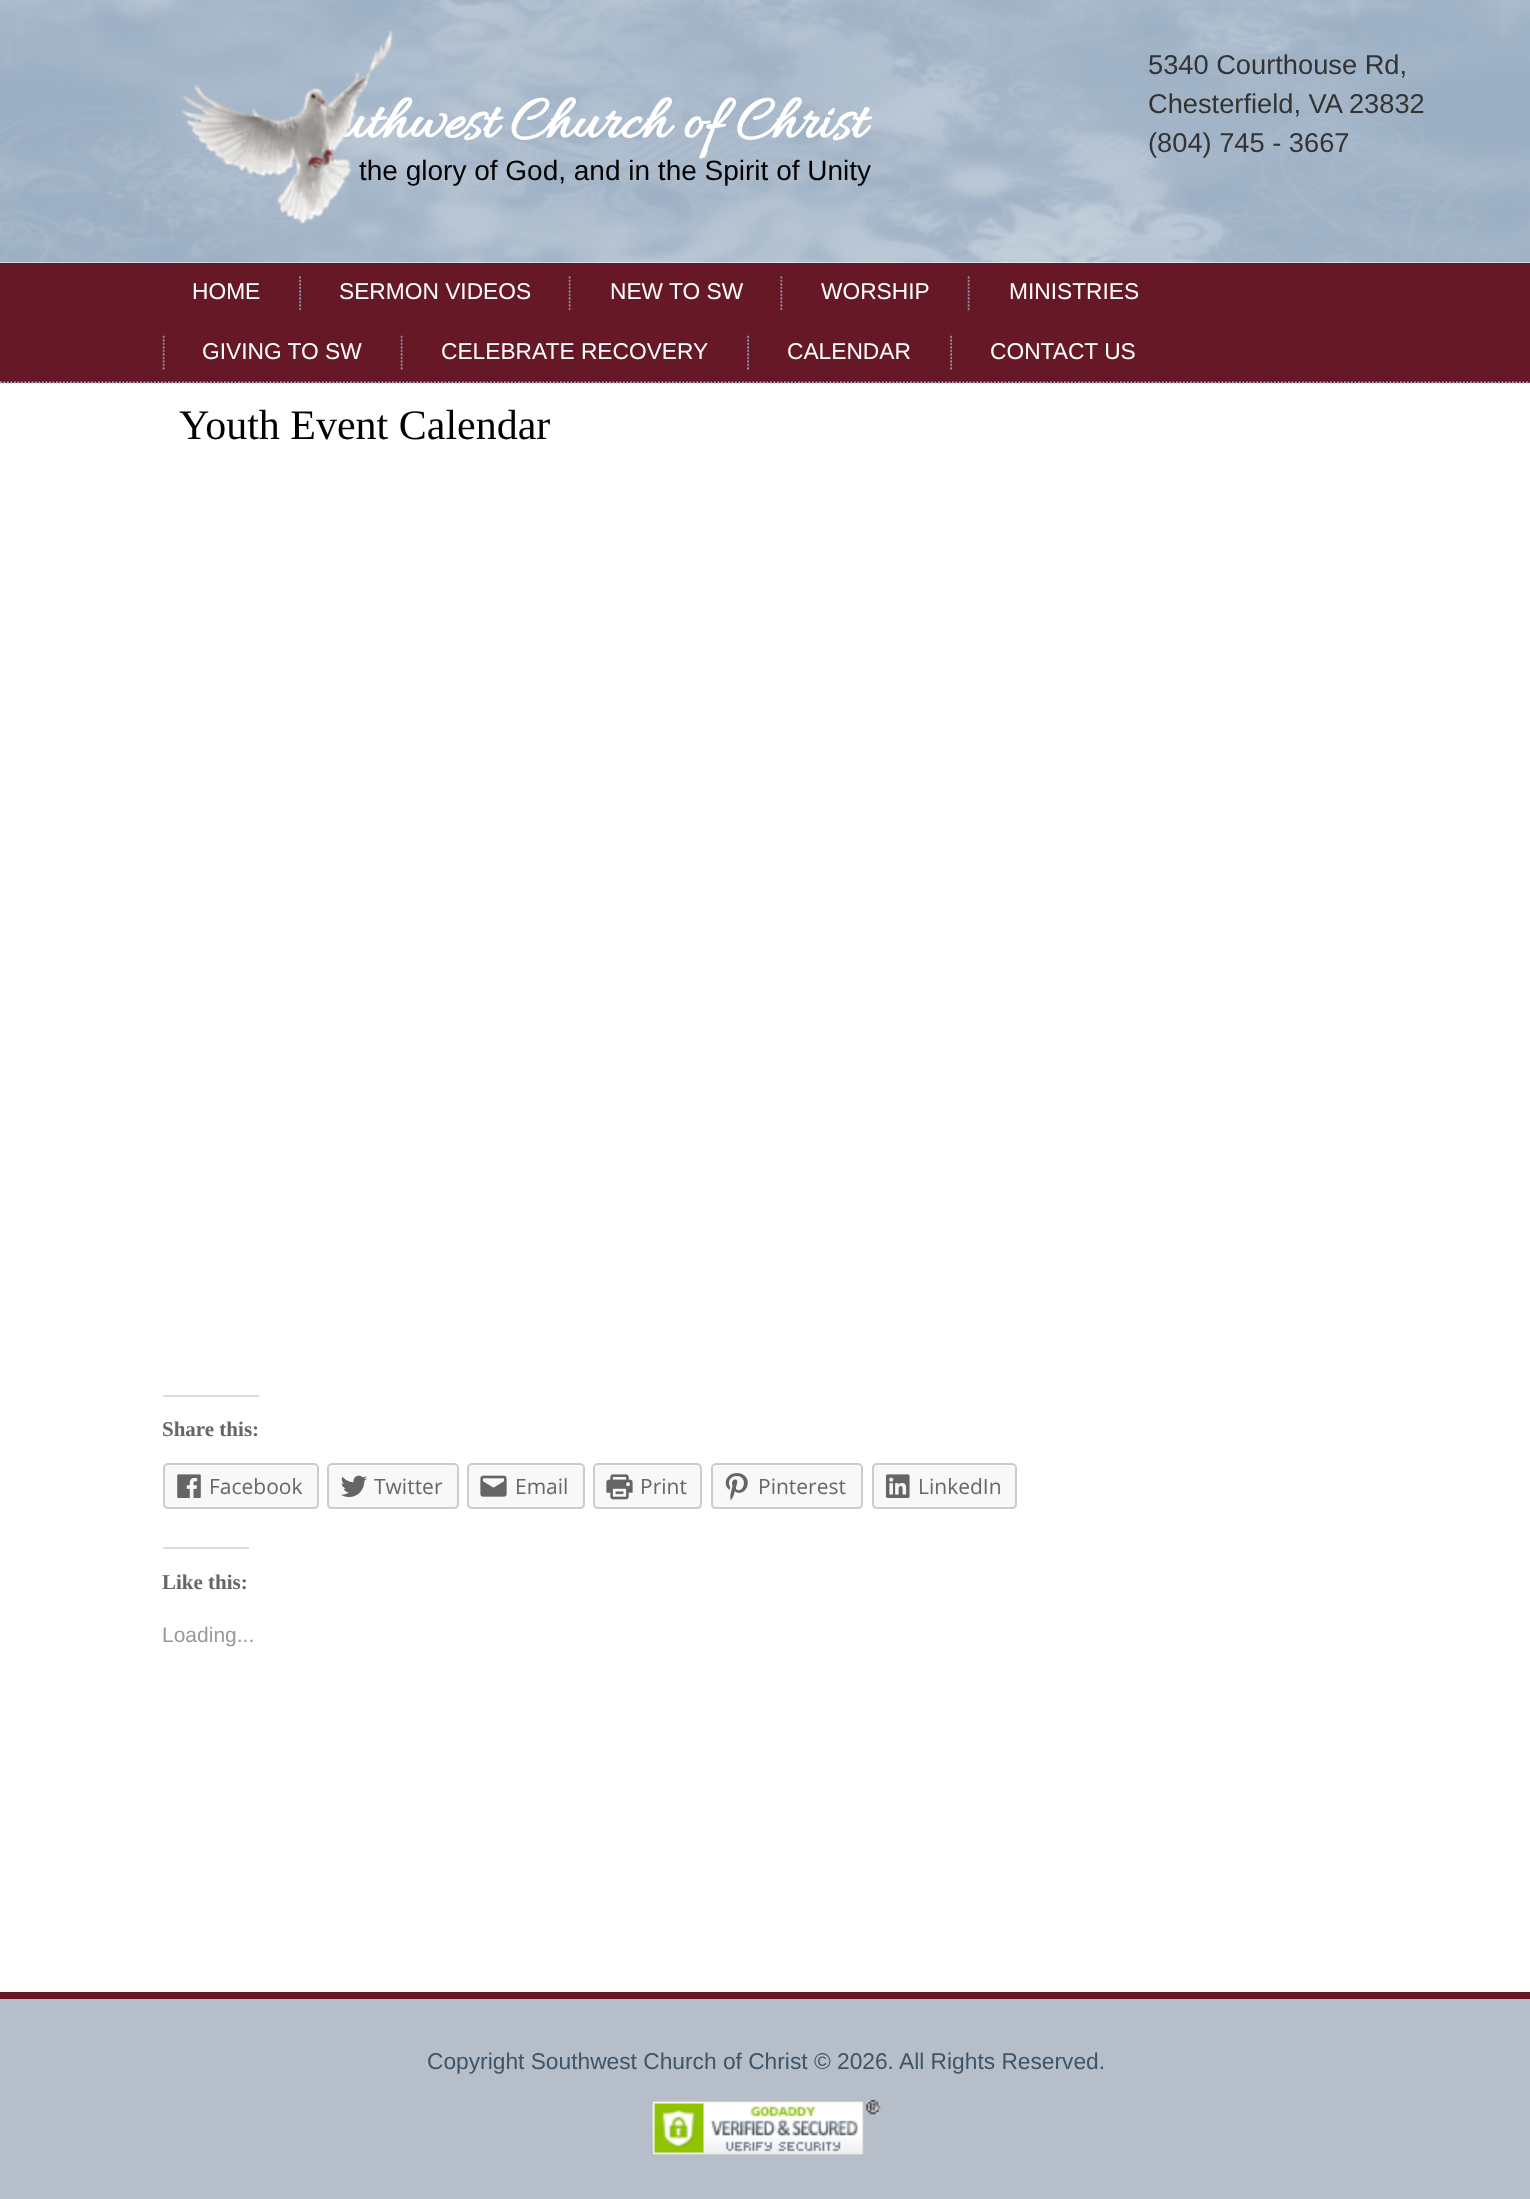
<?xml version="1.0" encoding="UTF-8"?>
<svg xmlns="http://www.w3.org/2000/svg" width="1530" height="2199">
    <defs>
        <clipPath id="clip1"><rect x="163" y="1463" width="156" height="46"/></clipPath>
        <clipPath id="clip2"><rect x="327" y="1463" width="132" height="46"/></clipPath>
        <clipPath id="clip3"><rect x="467" y="1463" width="118" height="46"/></clipPath>
        <clipPath id="clip4"><rect x="593" y="1463" width="109" height="46"/></clipPath>
        <clipPath id="clip5"><rect x="711" y="1463" width="152" height="46"/></clipPath>
        <clipPath id="clip6"><rect x="872" y="1463" width="145" height="46"/></clipPath>
    </defs>
    <rect width="100%" height="100%" fill="#FFFFFF"/>
    <image x="0" y="0" width="1530" height="263" href="img_01.png"/>
    <text x="338" y="137" font-family="Allura" font-size="63" font-weight="700" fill="#FFFFFF">uthwest Church of Christ</text>
    <text x="359" y="180" font-family="Liberation Sans" font-size="28" fill="#000000">the glory of God, and in the Spirit of Unity</text>
    <image x="181" y="29" width="212" height="196" href="img_02.png"/>
    <text font-family="Liberation Sans" font-size="27.25" fill="#333333">
        <tspan x="1148" y="74">5340 Courthouse Rd,</tspan>
        <tspan x="1148" y="113">Chesterfield, VA 23832</tspan>
        <tspan x="1148" y="152">(804) 745 - 3667</tspan>
    </text>
    <rect x="0" y="263" width="1530" height="120" fill="#671826"/>
    <path d="M 0 382.5 H 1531" fill="none" stroke="#A3B4C8" stroke-width="1.8" stroke-dasharray="1.75 1.75"/>
    <text x="192" y="299" font-family="Liberation Sans" font-size="22.75" fill="#FFFFFF">HOME</text>
    <image x="299" y="276" width="2" height="35" href="img_03.png"/>
    <text x="339" y="299" font-family="Liberation Sans" font-size="22.75" fill="#FFFFFF">SERMON VIDEOS</text>
    <image x="568" y="276" width="3" height="35" href="img_04.png"/>
    <text x="610" y="299" font-family="Liberation Sans" font-size="22.75" fill="#FFFFFF">NEW TO SW</text>
    <image x="780" y="276" width="3" height="35" href="img_05.png"/>
    <text x="821" y="299" font-family="Liberation Sans" font-size="22.75" fill="#FFFFFF">WORSHIP</text>
    <image x="967" y="276" width="3" height="35" href="img_04.png"/>
    <text x="1009" y="299" font-family="Liberation Sans" font-size="22.75" fill="#FFFFFF">MINISTRIES</text>
    <image x="162" y="335" width="3" height="35" href="img_06.png"/>
    <text x="202" y="359" font-family="Liberation Sans" font-size="22.75" fill="#FFFFFF">GIVING TO SW</text>
    <image x="400" y="335" width="3" height="35" href="img_06.png"/>
    <text x="441" y="359" font-family="Liberation Sans" font-size="22.75" fill="#FFFFFF">CELEBRATE RECOVERY</text>
    <image x="747" y="335" width="2" height="35" href="img_07.png"/>
    <text x="787" y="359" font-family="Liberation Sans" font-size="22.75" fill="#FFFFFF">CALENDAR</text>
    <image x="950" y="335" width="2" height="35" href="img_07.png"/>
    <text x="990" y="359" font-family="Liberation Sans" font-size="22.75" fill="#FFFFFF">CONTACT US</text>
    <text x="179" y="439" font-family="Liberation Serif" font-size="42" fill="#000000">Youth Event Calendar</text>
    <rect x="163" y="1395" width="96" height="2" fill="#DDDDDD"/>
    <text x="162" y="1436" font-family="Liberation Serif" font-size="21" font-weight="700" fill="#666666">Share this:</text>
    <g clip-path="url(#clip1)">
        <path d="M 163 1505 C 163 1508 165 1510 168 1510 H 314 C 317 1510 319 1508 319 1505 V 1470 L 318 1468 V 1497 C 318 1501 319 1508 313 1508 H 166 C 165 1508 164 1506 163 1505 Z" fill="#EBEBEB"/>
    </g>
    <rect x="164" y="1464" width="154" height="44" rx="4" fill="#F8F8F8" stroke="#CCCCCC" stroke-width="2"/>
    <image x="177" y="1474" width="24" height="24" href="img_08.png"/>
    <text x="209" y="1494" font-family="Open Sans" font-size="21" fill="#666666">Facebook</text>
    <g clip-path="url(#clip2)">
        <path d="M 327 1468 V 1505 C 327 1508 329 1510 332 1510 H 454 C 457 1510 459 1508 459 1505 V 1470 L 458 1468 V 1503 C 458 1506 456 1508 453 1508 H 332 C 330 1508 327 1506 327 1503 Z" fill="#EBEBEB"/>
    </g>
    <rect x="328" y="1464" width="130" height="44" rx="4" fill="#F8F8F8" stroke="#CCCCCC" stroke-width="2"/>
    <image x="340" y="1475" width="27" height="22" href="img_09.png"/>
    <text x="374" y="1494" font-family="Open Sans" font-size="21" fill="#666666">Twitter</text>
    <g clip-path="url(#clip3)">
        <path d="M 467 1468 V 1493 C 467 1514 466 1510 490 1510 H 562 C 586 1510 585 1514 585 1493 V 1476 C 585 1474 586 1470 584 1468 V 1503 C 584 1506 582 1508 579 1508 H 472 C 470 1508 467 1506 467 1503 Z" fill="#EBEBEB"/>
    </g>
    <rect x="468" y="1464" width="116" height="44" rx="4" fill="#F8F8F8" stroke="#CCCCCC" stroke-width="2"/>
    <image x="480" y="1475" width="27" height="22" href="img_10.png"/>
    <text x="515" y="1494" font-family="Open Sans" font-size="21" fill="#666666">Email</text>
    <g clip-path="url(#clip4)">
        <path d="M 593 1468 V 1493 C 593 1514 592 1510 614 1510 H 680 C 703 1510 702 1514 702 1493 V 1468 V 1503 C 702 1506 699 1508 696 1508 H 598 C 596 1508 593 1506 593 1503 Z" fill="#EBEBEB"/>
    </g>
    <rect x="594" y="1464" width="107" height="44" rx="4" fill="#F8F8F8" stroke="#CCCCCC" stroke-width="2"/>
    <image x="606" y="1474" width="27" height="26" href="img_11.png"/>
    <text x="640" y="1494" font-family="Open Sans" font-size="21" fill="#666666">Print</text>
    <g clip-path="url(#clip5)">
        <path d="M 711 1506 C 711 1508 713 1510 716 1510 H 858 C 861 1510 863 1508 863 1505 V 1468 V 1503 C 863 1506 860 1508 858 1508 H 716 C 714 1508 712 1507 711 1506 Z" fill="#EBEBEB"/>
    </g>
    <rect x="712" y="1464" width="150" height="44" rx="4" fill="#F8F8F8" stroke="#CCCCCC" stroke-width="2"/>
    <image x="725" y="1473" width="23" height="28" href="img_12.png"/>
    <text x="758" y="1494" font-family="Open Sans" font-size="21" fill="#666666">Pinterest</text>
    <g clip-path="url(#clip6)">
        <path d="M 872 1506 C 873 1514 891 1510 900 1510 H 990 C 996 1510 1015 1514 1017 1506 V 1468 V 1503 C 1017 1506 1014 1508 1012 1508 H 877 C 875 1508 873 1507 872 1506 Z" fill="#EBEBEB"/>
    </g>
    <rect x="873" y="1464" width="143" height="44" rx="4" fill="#F8F8F8" stroke="#CCCCCC" stroke-width="2"/>
    <image x="885" y="1474" width="25" height="24" href="img_13.png"/>
    <text x="918" y="1494" font-family="Open Sans" font-size="21" fill="#666666">LinkedIn</text>
    <rect x="163" y="1547" width="86" height="2" fill="#DDDDDD"/>
    <text x="162" y="1589" font-family="Liberation Serif" font-size="21" font-weight="700" fill="#666666">Like this:</text>
    <text x="162" y="1642" font-family="Liberation Sans" font-size="21" fill="#999999">Loading...</text>
    <rect x="0" y="1999" width="1530" height="200" fill="#B6BFC9"/>
    <rect x="0" y="1992" width="1530" height="7" fill="#671826"/>
    <text x="427" y="2069" font-family="Liberation Sans" font-size="22.75" fill="#3F5369">Copyright Southwest Church of Christ © 2026. All Rights Reserved.</text>
    <image x="651" y="2100" width="230" height="56" href="img_14.png"/>
</svg>
